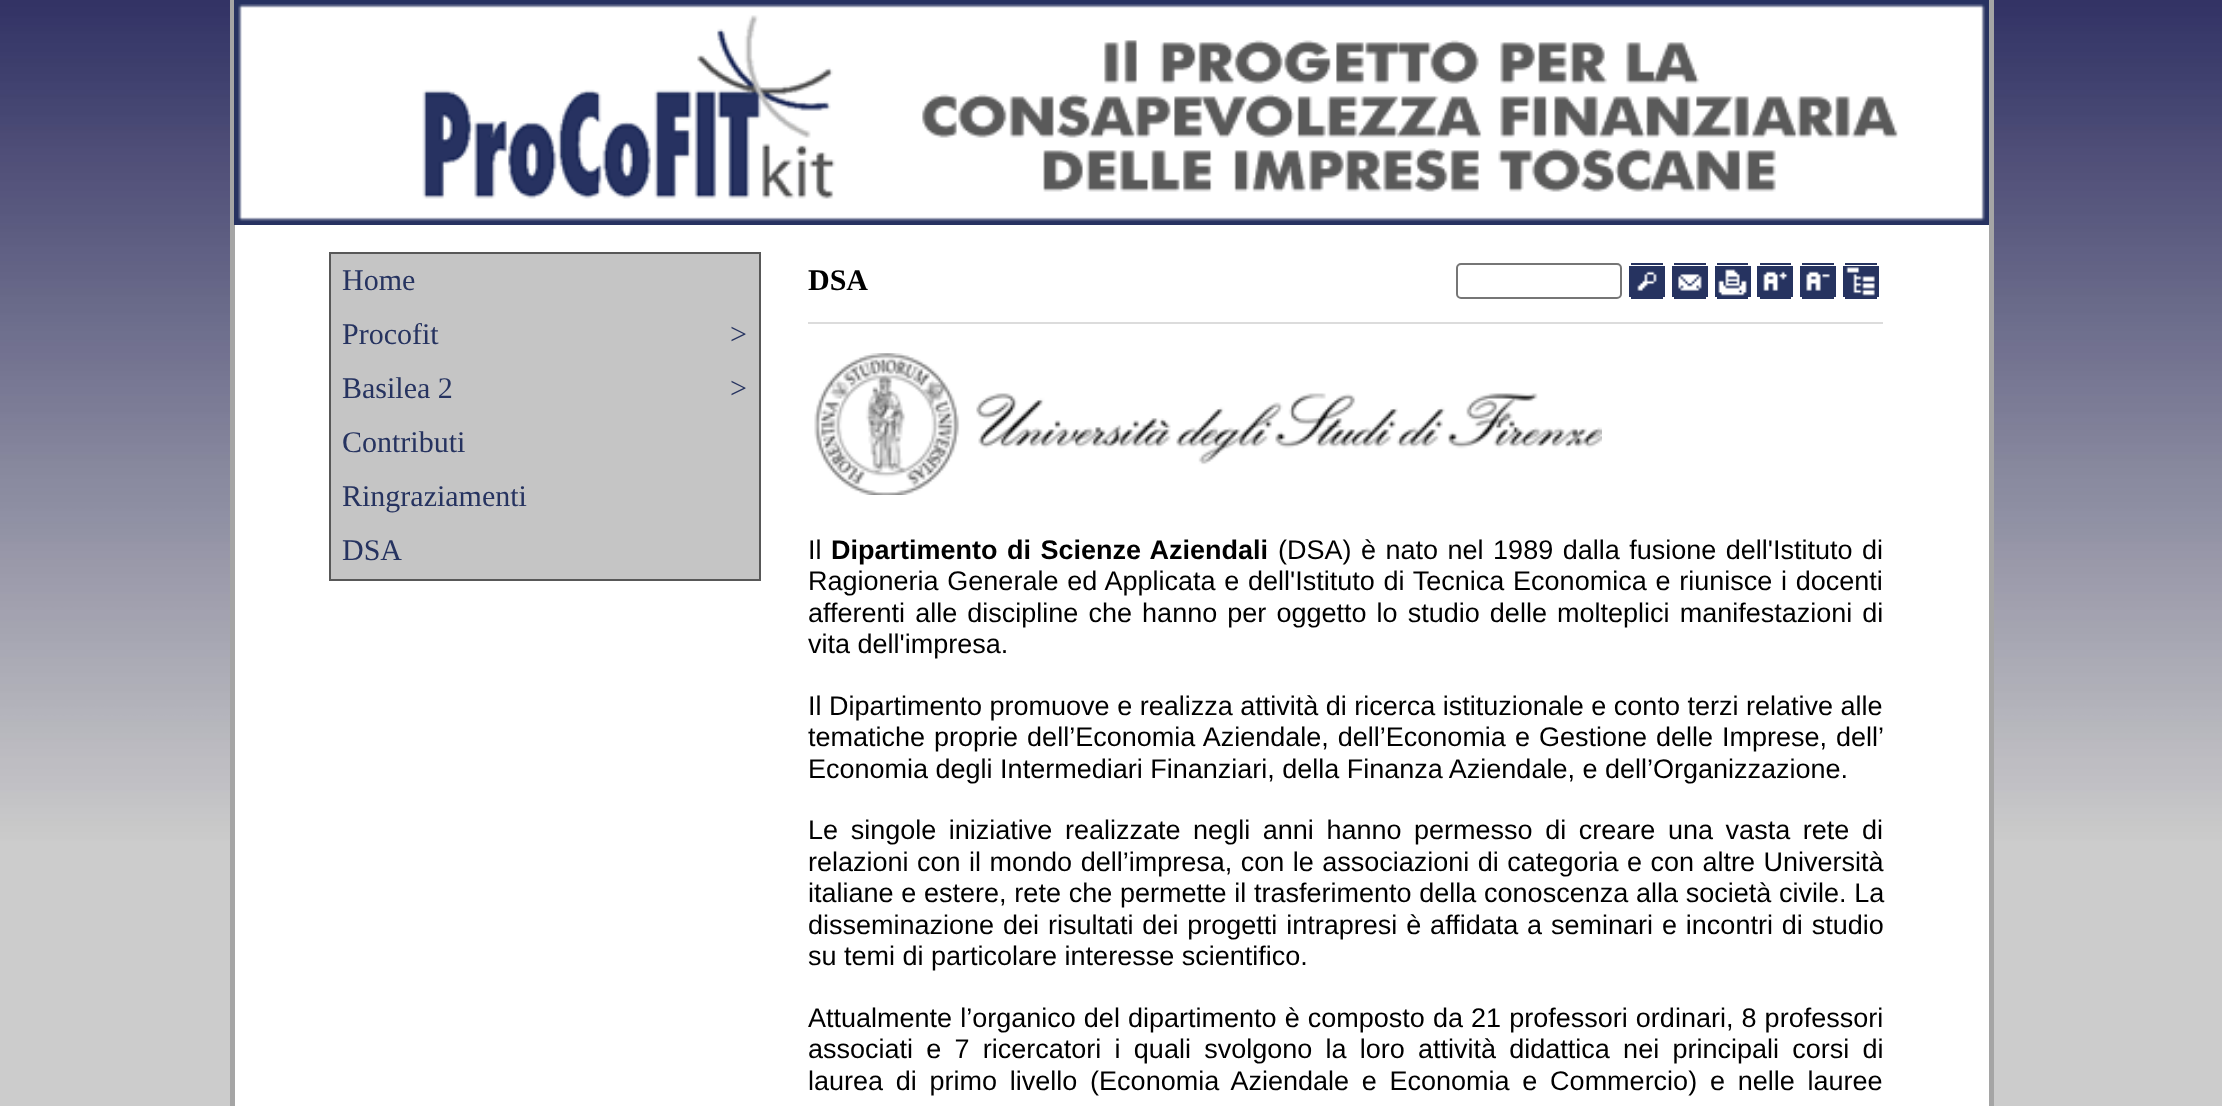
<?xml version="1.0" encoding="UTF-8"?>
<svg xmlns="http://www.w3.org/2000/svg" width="2222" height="1106">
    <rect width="100%" height="100%" fill="#FFFFFF"/>
    <image x="0" y="0" width="230" height="1106" href="img_01.png"/>
    <rect x="230" y="0" width="5" height="1106" fill="#A5A5A5"/>
    <image x="234" y="0" width="1755" height="225" href="img_02.png"/>
    <rect x="330" y="253" width="430" height="327" fill="#C5C5C5" stroke="#585858" stroke-width="2"/>
    <text font-family="Liberation Serif" font-size="30" fill="#263360">
        <tspan x="342" y="290">Home</tspan>
        <tspan x="342" y="344">Procofit</tspan>
    </text>
    <text x="730" y="344" font-family="Liberation Serif" font-size="30" fill="#263360">&gt;</text>
    <text x="342" y="398" font-family="Liberation Serif" font-size="30" fill="#263360">Basilea 2</text>
    <text x="730" y="398" font-family="Liberation Serif" font-size="30" fill="#263360">&gt;</text>
    <text font-family="Liberation Serif" font-size="30" fill="#263360">
        <tspan x="342" y="452">Contributi</tspan>
        <tspan x="342" y="506">Ringraziamenti</tspan>
        <tspan x="342" y="560">DSA</tspan>
    </text>
    <text x="808" y="290" font-family="Liberation Serif" font-size="30" font-weight="700" fill="#000000">DSA</text>
    <rect x="1457" y="264" width="164" height="34" rx="4" fill="none" stroke="#767676" stroke-width="2"/>
    <rect x="1631" y="263" width="32" height="2" fill="#263360"/>
    <rect x="1629" y="266" width="36" height="31" fill="#263360"/>
    <image x="1637" y="271" width="20" height="20" href="img_03.png"/>
    <rect x="1631" y="297" width="32" height="2" fill="#263360"/>
    <rect x="1674" y="263" width="32" height="2" fill="#263360"/>
    <rect x="1672" y="266" width="36" height="31" fill="#263360"/>
    <image x="1678" y="274" width="24" height="17" href="img_04.png"/>
    <rect x="1674" y="297" width="32" height="2" fill="#263360"/>
    <rect x="1717" y="263" width="31" height="2" fill="#263360"/>
    <rect x="1715" y="266" width="36" height="31" fill="#263360"/>
    <image x="1718" y="269" width="29" height="27" href="img_05.png"/>
    <rect x="1717" y="297" width="31" height="2" fill="#263360"/>
    <rect x="1760" y="263" width="31" height="2" fill="#263360"/>
    <rect x="1757" y="266" width="36" height="31" fill="#263360"/>
    <image x="1763" y="271" width="25" height="20" href="img_06.png"/>
    <rect x="1760" y="297" width="31" height="2" fill="#263360"/>
    <rect x="1802" y="263" width="32" height="2" fill="#263360"/>
    <rect x="1800" y="266" width="36" height="31" fill="#263360"/>
    <image x="1806" y="271" width="24" height="20" href="img_07.png"/>
    <rect x="1802" y="297" width="32" height="2" fill="#263360"/>
    <rect x="1845" y="263" width="32" height="2" fill="#263360"/>
    <rect x="1843" y="266" width="36" height="31" fill="#263360"/>
    <image x="1846" y="267" width="29" height="29" href="img_08.png"/>
    <rect x="1845" y="297" width="32" height="2" fill="#263360"/>
    <rect x="808" y="322" width="1075" height="2" fill="#DCDCDC"/>
    <image x="814" y="353" width="788" height="142" href="img_09.png"/>
    <text x="808" y="559" font-family="Liberation Sans" font-size="27" fill="#000000">Il</text>
    <text x="831" y="559" word-spacing="2" font-family="Liberation Sans" font-size="27" font-weight="700" fill="#000000">Dipartimento di Scienze Aziendali</text>
    <text x="1278" y="559" word-spacing="2" font-family="Liberation Sans" font-size="27" fill="#000000">(DSA) è nato nel 1989 dalla fusione dell'Istituto di</text>
    <text font-family="Liberation Sans" font-size="27" fill="#000000">
        <tspan x="808" y="590" word-spacing="1.25">Ragioneria Generale ed Applicata e dell'Istituto di Tecnica Economica e riunisce i docenti</tspan>
        <tspan x="808" y="622" word-spacing="2.6">afferenti alle discipline che hanno per oggetto lo studio delle molteplici manifestazioni di</tspan>
        <tspan x="808" y="653">vita dell'impresa.</tspan>
    </text>
    <text font-family="Liberation Sans" font-size="27" fill="#000000">
        <tspan x="808" y="715">Il Dipartimento promuove e realizza attività di ricerca istituzionale e conto terzi relative alle</tspan>
        <tspan x="808" y="746" word-spacing="1.5">tematiche proprie dell’Economia Aziendale, dell’Economia e Gestione delle Imprese, dell’</tspan>
        <tspan x="808" y="778">Economia degli Intermediari Finanziari, della Finanza Aziendale, e dell’Organizzazione.</tspan>
    </text>
    <text font-family="Liberation Sans" font-size="27" fill="#000000">
        <tspan x="808" y="839" word-spacing="5.1">Le singole iniziative realizzate negli anni hanno permesso di creare una vasta rete di</tspan>
        <tspan x="808" y="871" word-spacing="1">relazioni con il mondo dell’impresa, con le associazioni di categoria e con altre Università</tspan>
        <tspan x="808" y="902" word-spacing="0.25">italiane e estere, rete che permette il trasferimento della conoscenza alla società civile. La</tspan>
        <tspan x="808" y="934" word-spacing="1.4">disseminazione dei risultati dei progetti intrapresi è affidata a seminari e incontri di studio</tspan>
        <tspan x="808" y="965">su temi di particolare interesse scientifico.</tspan>
    </text>
    <text font-family="Liberation Sans" font-size="27" fill="#000000">
        <tspan x="808" y="1027" word-spacing="0.6">Attualmente l’organico del dipartimento è composto da 21 professori ordinari, 8 professori</tspan>
        <tspan x="808" y="1058" word-spacing="5.75">associati e 7 ricercatori i quali svolgono la loro attività didattica nei principali corsi di</tspan>
        <tspan x="808" y="1090" word-spacing="5.25">laurea di primo livello (Economia Aziendale e Economia e Commercio) e nelle lauree</tspan>
    </text>
    <image x="1994" y="0" width="228" height="1106" href="img_10.png"/>
    <rect x="1989" y="0" width="5" height="1106" fill="#A5A5A5"/>
</svg>
